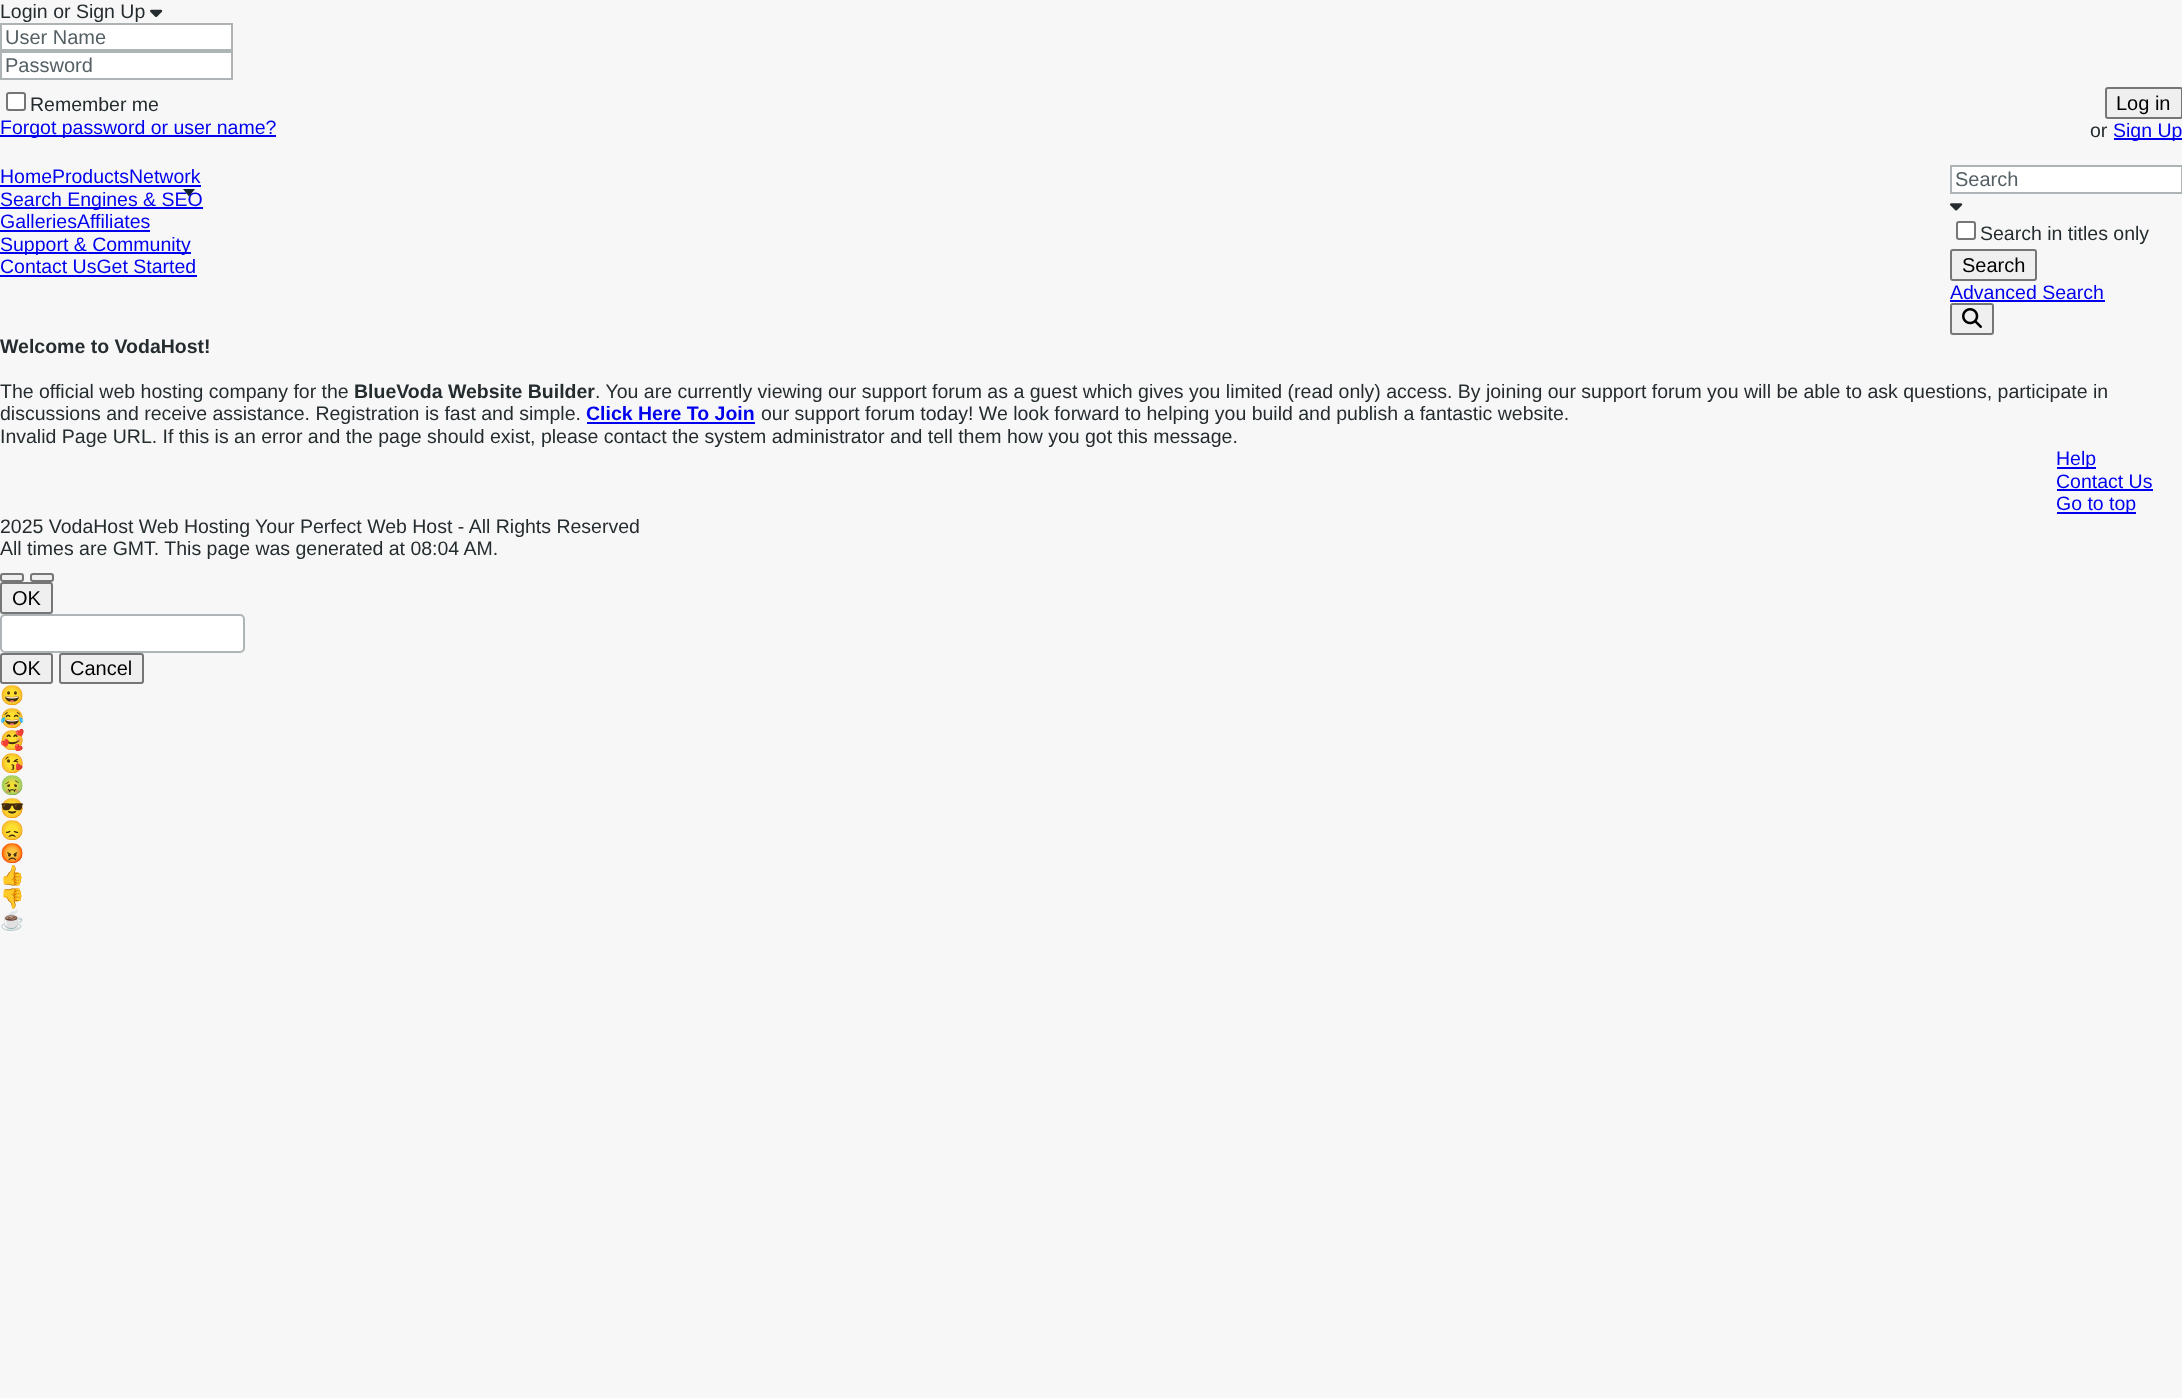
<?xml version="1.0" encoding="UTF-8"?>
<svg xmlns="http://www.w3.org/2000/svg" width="2182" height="1398">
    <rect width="100%" height="100%" fill="#F7F7F7"/>
    <text x="0" y="18" font-family="Liberation Sans" font-size="19.5" fill="#252C2F">Login or Sign Up</text>
    <image x="150" y="9" width="13" height="8" href="img_01.png"/>
    <rect x="1" y="24" width="231" height="26" fill="#FFFFFF" stroke="#AEB3B6" stroke-width="2"/>
    <text x="5" y="44" font-family="Liberation Sans" font-size="20" fill="#556065">User Name</text>
    <rect x="1" y="52" width="231" height="27" fill="#FFFFFF" stroke="#AEB3B6" stroke-width="2"/>
    <text x="5" y="72" font-family="Liberation Sans" font-size="20" fill="#556065">Password</text>
    <rect x="7" y="93" width="18" height="17" rx="2" fill="#FFFFFF" stroke="#767676" stroke-width="2"/>
    <text x="30" y="111" font-family="Liberation Sans" font-size="19.5" fill="#252C2F">Remember me</text>
    <rect x="2106" y="88" width="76" height="30" rx="2" fill="#EFEFEF" stroke="#767676" stroke-width="2"/>
    <text x="2116" y="110" font-family="Liberation Sans" font-size="20" fill="#000000">Log in</text>
    <rect x="0" y="135" width="276" height="2" fill="#0000EE"/>
    <text x="0" y="134" font-family="Liberation Sans" font-size="19.5" fill="#0000EE">Forgot password or user name?</text>
    <text x="2090" y="137" font-family="Liberation Sans" font-size="19.5" fill="#252C2F">or</text>
    <rect x="2114" y="138" width="68" height="2" fill="#0000EE"/>
    <text x="2113" y="137" font-family="Liberation Sans" font-size="19.5" fill="#0000EE">Sign Up</text>
    <text x="0" y="183" font-family="Liberation Sans" font-size="19.5" fill="#0000EE">HomeProductsNetwork</text>
    <rect x="0" y="185" width="201" height="2" fill="#0000EE"/>
    <rect x="0" y="207" width="203" height="2" fill="#0000EE"/>
    <text font-family="Liberation Sans" font-size="19.5" fill="#0000EE">
        <tspan x="0" y="206">Search Engines &amp; SEO</tspan>
        <tspan x="0" y="228">GalleriesAffiliates</tspan>
    </text>
    <rect x="0" y="230" width="150" height="2" fill="#0000EE"/>
    <path d="M 183 189 H 195 L 189 196.5 Z" fill="#13242F"/>
    <rect x="0" y="252" width="191" height="2" fill="#0000EE"/>
    <text font-family="Liberation Sans" font-size="19.5" fill="#0000EE">
        <tspan x="0" y="251">Support &amp; Community</tspan>
        <tspan x="0" y="273">Contact UsGet Started</tspan>
    </text>
    <rect x="0" y="275" width="197" height="2" fill="#0000EE"/>
    <rect x="1951" y="166" width="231" height="27" fill="#FFFFFF" stroke="#AEB3B6" stroke-width="2"/>
    <text x="1955" y="186" font-family="Liberation Sans" font-size="20" fill="#556065">Search</text>
    <image x="1950" y="203" width="13" height="8" href="img_02.png"/>
    <rect x="1957" y="222" width="18" height="17" rx="2" fill="#FFFFFF" stroke="#767676" stroke-width="2"/>
    <text x="1980" y="240" font-family="Liberation Sans" font-size="19.5" fill="#252C2F">Search in titles only</text>
    <rect x="1951" y="250" width="85" height="30" rx="2" fill="#EFEFEF" stroke="#767676" stroke-width="2"/>
    <text x="1962" y="272" font-family="Liberation Sans" font-size="20" fill="#000000">Search</text>
    <text x="1950" y="299" font-family="Liberation Sans" font-size="19.5" fill="#0000EE">Advanced Search</text>
    <rect x="1950" y="300" width="155" height="2" fill="#0000EE"/>
    <rect x="1951" y="304" width="42" height="30" rx="2" fill="#EFEFEF" stroke="#767676" stroke-width="2"/>
    <image x="1962" y="308" width="20" height="20" href="img_03.png"/>
    <text x="0" y="353" font-family="Liberation Sans" font-size="19.5" font-weight="700" fill="#252C2F">Welcome to VodaHost!</text>
    <text x="0" y="398" font-family="Liberation Sans" font-size="19.5" fill="#252C2F">The official web hosting company for the</text>
    <text x="354" y="398" font-family="Liberation Sans" font-size="19.5" font-weight="700" fill="#252C2F">BlueVoda Website Builder</text>
    <text x="595" y="398" font-family="Liberation Sans" font-size="19.5" fill="#252C2F">. You are currently viewing our support forum as a guest which gives you limited (read only) access. By joining our support forum you will be able to ask questions, participate in</text>
    <text x="0" y="420" font-family="Liberation Sans" font-size="19.5" fill="#252C2F">discussions and receive assistance. Registration is fast and simple.</text>
    <text x="586" y="420" font-family="Liberation Sans" font-size="19.5" font-weight="700" fill="#0000EE">Click Here To Join</text>
    <rect x="587" y="422" width="168" height="2" fill="#0000EE"/>
    <text x="761" y="420" font-family="Liberation Sans" font-size="19.5" fill="#252C2F">our support forum today! We look forward to helping you build and publish a fantastic website.</text>
    <text x="0" y="443" font-family="Liberation Sans" font-size="19.5" fill="#252C2F">Invalid Page URL. If this is an error and the page should exist, please contact the system administrator and tell them how you got this message.</text>
    <rect x="2057" y="467" width="39" height="2" fill="#0000EE"/>
    <text font-family="Liberation Sans" font-size="19.5" fill="#0000EE">
        <tspan x="2056" y="465">Help</tspan>
        <tspan x="2056" y="488">Contact Us</tspan>
    </text>
    <rect x="2057" y="489" width="96" height="2" fill="#0000EE"/>
    <rect x="2057" y="512" width="79" height="2" fill="#0000EE"/>
    <text x="2056" y="510" font-family="Liberation Sans" font-size="19.5" fill="#0000EE">Go to top</text>
    <text font-family="Liberation Sans" font-size="19.5" fill="#252C2F">
        <tspan x="0" y="533">2025 VodaHost Web Hosting Your Perfect Web Host - All Rights Reserved</tspan>
        <tspan x="0" y="555">All times are GMT. This page was generated at 08:04 AM.</tspan>
    </text>
    <rect x="1" y="574" width="22" height="7" rx="2" fill="#EFEFEF" stroke="#767676" stroke-width="2"/>
    <rect x="31" y="574" width="22" height="7" rx="2" fill="#EFEFEF" stroke="#767676" stroke-width="2"/>
    <rect x="1" y="583" width="51" height="30" rx="2" fill="#EFEFEF" stroke="#767676" stroke-width="2"/>
    <text x="12" y="605" font-family="Liberation Sans" font-size="20" fill="#000000">OK</text>
    <rect x="1" y="615" width="243" height="37" rx="4" fill="#FFFFFF" stroke="#AEB3B6" stroke-width="2"/>
    <rect x="1" y="654" width="51" height="29" rx="2" fill="#EFEFEF" stroke="#767676" stroke-width="2"/>
    <text x="12" y="675" font-family="Liberation Sans" font-size="20" fill="#000000">OK</text>
    <rect x="60" y="654" width="83" height="29" rx="2" fill="#EFEFEF" stroke="#767676" stroke-width="2"/>
    <text x="70" y="675" font-family="Liberation Sans" font-size="20" fill="#000000">Cancel</text>
    <text font-family="Noto Color Emoji" font-size="19.5" fill="#252C2F">
        <tspan x="0" y="702">😀</tspan>
        <tspan x="0" y="725">😂</tspan>
        <tspan x="0" y="747">🥰</tspan>
        <tspan x="0" y="770">😘</tspan>
        <tspan x="0" y="792">🤢</tspan>
        <tspan x="0" y="815">😎</tspan>
        <tspan x="0" y="837">😞</tspan>
        <tspan x="0" y="860">😡</tspan>
        <tspan x="0" y="882">👍</tspan>
        <tspan x="0" y="905">👎</tspan>
        <tspan x="0" y="927">☕</tspan>
    </text>
</svg>
